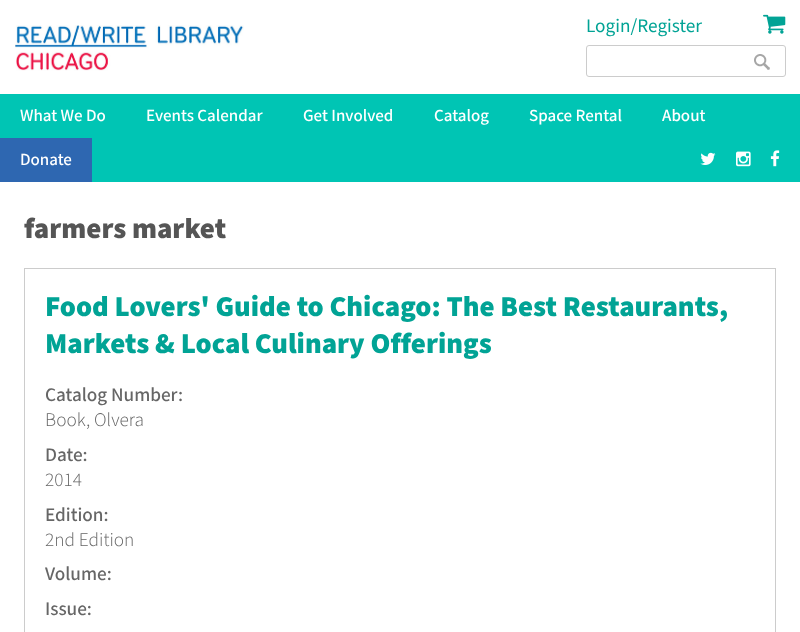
<?xml version="1.0" encoding="UTF-8"?>
<svg xmlns="http://www.w3.org/2000/svg" width="800" height="632">
    <rect width="100%" height="100%" fill="#FFFFFF"/>
    <image x="15" y="25" width="229" height="46" href="img_01.png"/>
    <text x="586" y="32" font-family="Mada" font-size="19.25" fill="#01A395">Login/Register</text>
    <image x="763" y="14" width="23" height="20" href="img_02.png"/>
    <rect x="586.5" y="45.5" width="199" height="31" rx="2.5" fill="none" stroke="#CCCCCC"/>
    <image x="754" y="54" width="16" height="16" href="img_03.png"/>
    <rect x="0" y="94" width="800" height="88" fill="#00C5B4"/>
    <text x="20" y="121" font-family="Mada" font-size="17" font-weight="500" fill="#FFFFFF">What We Do</text>
    <text x="146" y="121" font-family="Mada" font-size="17" font-weight="500" fill="#FFFFFF">Events Calendar</text>
    <text x="303" y="121" font-family="Mada" font-size="17" font-weight="500" fill="#FFFFFF">Get Involved</text>
    <text x="434" y="121" font-family="Mada" font-size="17" font-weight="500" fill="#FFFFFF">Catalog</text>
    <text x="529" y="121" font-family="Mada" font-size="17" font-weight="500" fill="#FFFFFF">Space Rental</text>
    <text x="662" y="121" font-family="Mada" font-size="17" font-weight="500" fill="#FFFFFF">About</text>
    <rect x="0" y="138" width="92" height="44" fill="#2E67B1"/>
    <text x="20" y="165" font-family="Mada" font-size="17" font-weight="500" fill="#FFFFFF">Donate</text>
    <image x="700" y="152" width="16" height="13" href="img_04.png"/>
    <image x="736" y="151" width="15" height="16" href="img_05.png"/>
    <image x="770" y="150" width="10" height="17" href="img_06.png"/>
    <text x="24" y="238" font-family="Mada" font-size="28.8" font-weight="900" fill="#555555">farmers market</text>
    <rect x="24.5" y="268.5" width="751" height="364" fill="none" stroke="#CCCCCC"/>
    <text font-family="Mada" font-size="28.8" font-weight="900" fill="#01A395">
        <tspan x="45" y="316">Food Lovers' Guide to Chicago: The Best Restaurants,</tspan>
        <tspan x="45" y="353">Markets &amp; Local Culinary Offerings</tspan>
    </text>
    <text x="45" y="401" font-family="Mada" font-size="19.25" font-weight="500" fill="#666666">Catalog Number:</text>
    <text x="45" y="426" font-family="Mada" font-size="19.25" font-weight="300" fill="#666666">Book, Olvera</text>
    <text x="45" y="461" font-family="Mada" font-size="19.25" font-weight="500" fill="#666666">Date:</text>
    <text x="45" y="486" font-family="Mada" font-size="19.25" font-weight="300" fill="#666666">2014</text>
    <text x="45" y="521" font-family="Mada" font-size="19.25" font-weight="500" fill="#666666">Edition:</text>
    <text x="45" y="546" font-family="Mada" font-size="19.25" font-weight="300" fill="#666666">2nd Edition</text>
    <text font-family="Mada" font-size="19.25" font-weight="500" fill="#666666">
        <tspan x="45" y="580">Volume:</tspan>
        <tspan x="45" y="615">Issue:</tspan>
    </text>
</svg>
